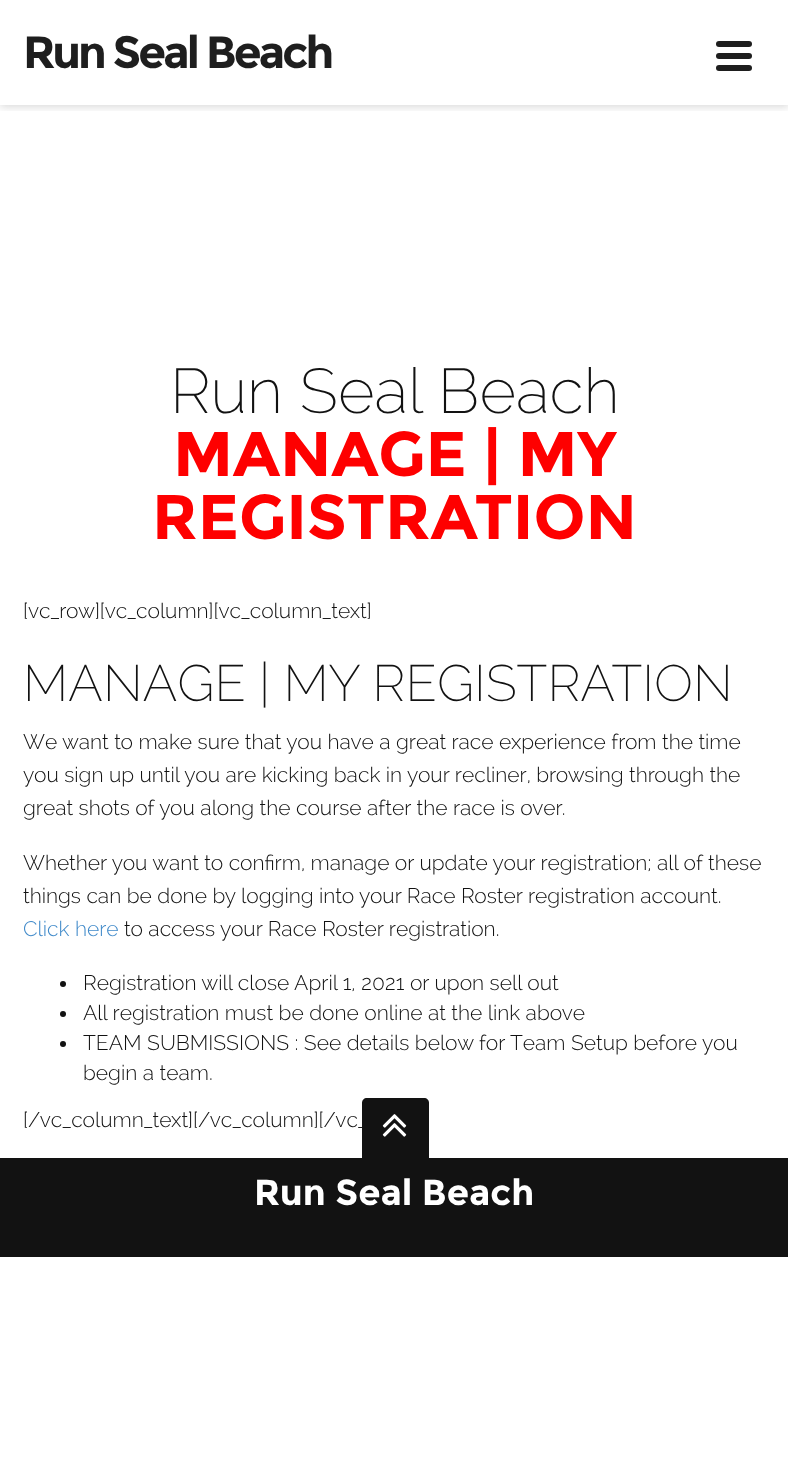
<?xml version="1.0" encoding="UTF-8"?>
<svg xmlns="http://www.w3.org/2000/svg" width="788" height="1458">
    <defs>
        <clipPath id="clip1"><rect x="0" y="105" width="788" height="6"/></clipPath>
        <filter id="blur1" x="-50%" y="-200%" width="200%" height="500%"><feGaussianBlur stdDeviation="4"/></filter>
    </defs>
    <rect width="100%" height="100%" fill="#FFFFFF"/>
    <g clip-path="url(#clip1)">
        <rect x="0" y="2" width="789" height="105" fill="#0D0D0D" fill-opacity="0.15" filter="url(#blur1)"/>
    </g>
    <text x="23" y="68" font-family="Montserrat" font-size="45" font-weight="700" letter-spacing="-3" fill="#1E1E1E">Run Seal Beach</text>
    <rect x="716" y="41" width="36" height="6" rx="3" fill="#1E1E1E"/>
    <rect x="716" y="53" width="36" height="6" rx="3" fill="#1E1E1E"/>
    <rect x="716" y="65" width="36" height="6" rx="3" fill="#1E1E1E"/>
    <text x="170" y="413" font-family="Raleway" font-size="63" font-weight="200" fill="#121212">Run Seal Beach</text>
    <text x="173" y="476" font-family="Montserrat" font-size="63" font-weight="700" fill="#FE0000">MANAGE | MY</text>
    <text x="152" y="539" font-family="Montserrat" font-size="63" font-weight="700" fill="#FE0000">REGISTRATION</text>
    <text x="23" y="618" font-family="Raleway" font-size="21" font-weight="300" fill="#121212">[vc_row][vc_column][vc_column_text]</text>
    <text x="23" y="701" font-family="Raleway" font-size="51" font-weight="200" fill="#121212">MANAGE | MY REGISTRATION</text>
    <text font-family="Raleway" font-size="21" font-weight="300" fill="#121212">
        <tspan x="23" y="749">We want to make sure that you have a great race experience from the time</tspan>
        <tspan x="23" y="782">you sign up until you are kicking back in your recliner, browsing through the</tspan>
        <tspan x="23" y="815">great shots of you along the course after the race is over.</tspan>
    </text>
    <text font-family="Raleway" font-size="21" font-weight="300" fill="#121212">
        <tspan x="23" y="870">Whether you want to confirm, manage or update your registration; all of these</tspan>
        <tspan x="23" y="903">things can be done by logging into your Race Roster registration account.</tspan>
    </text>
    <text x="23" y="936" font-family="Raleway" font-size="21" font-weight="300" fill="#428BCA">Click here</text>
    <text x="124" y="936" font-family="Raleway" font-size="21" font-weight="300" fill="#121212">to access your Race Roster registration.</text>
    <circle cx="63" cy="984" r="3" fill="#121212"/>
    <text x="83" y="990" font-family="Raleway" font-size="21" font-weight="300" fill="#121212">Registration will close April 1, 2021 or upon sell out</text>
    <circle cx="63" cy="1014" r="3" fill="#121212"/>
    <text x="83" y="1020" font-family="Raleway" font-size="21" font-weight="300" fill="#121212">All registration must be done online at the link above</text>
    <circle cx="63" cy="1044" r="3" fill="#121212"/>
    <text font-family="Raleway" font-size="21" font-weight="300" fill="#121212">
        <tspan x="83" y="1050">TEAM SUBMISSIONS : See details below for Team Setup before you</tspan>
        <tspan x="83" y="1080">begin a team.</tspan>
    </text>
    <text x="23" y="1127" font-family="Raleway" font-size="21" font-weight="300" fill="#121212">[/vc_column_text][/vc_column][/vc_</text>
    <rect x="0" y="1158" width="788" height="99" fill="#121212"/>
    <path d="M 367 1098 H 424 C 427 1098 429 1100 429 1103 V 1158 H 362 V 1103 C 362 1100 364 1098 367 1098 Z" fill="#121212"/>
    <image x="382" y="1114" width="25" height="23" href="img_01.png"/>
    <text x="254" y="1205" font-family="Montserrat" font-size="36" font-weight="700" fill="#FFFFFF">Run Seal Beach</text>
</svg>
